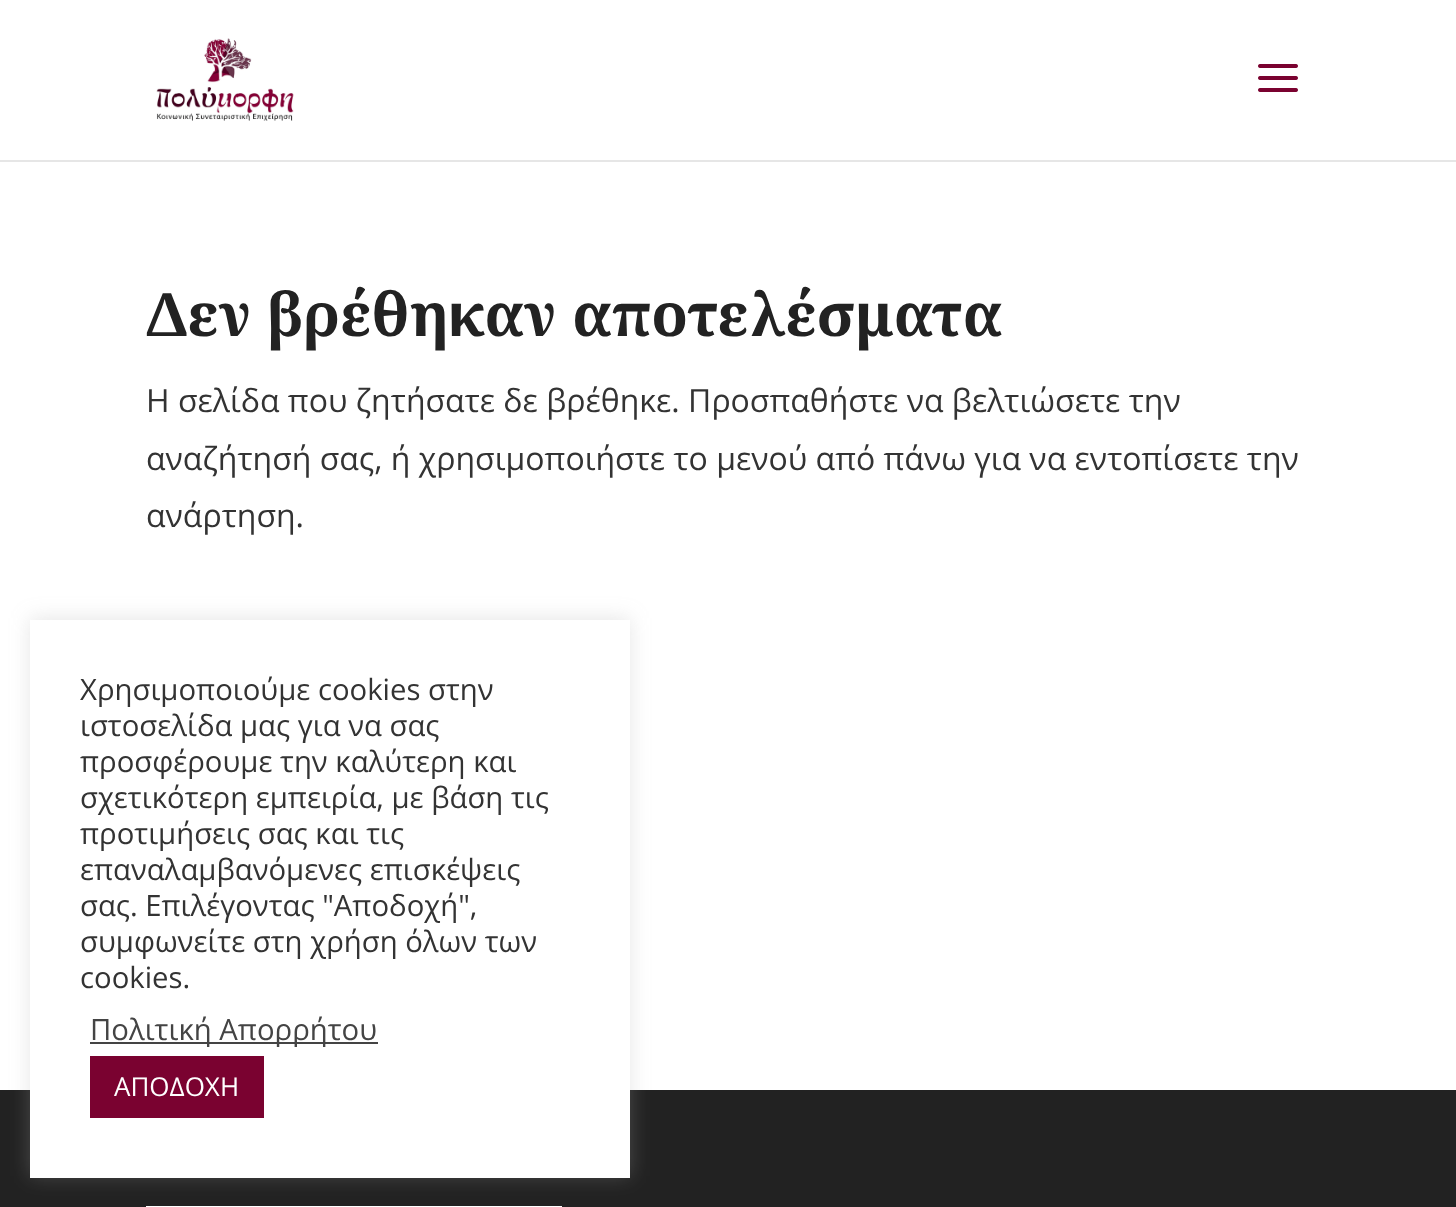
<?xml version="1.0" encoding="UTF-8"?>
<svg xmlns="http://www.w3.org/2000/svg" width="1456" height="1207">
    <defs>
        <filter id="blur1" x="-50%" y="-200%" width="200%" height="500%"><feGaussianBlur stdDeviation="10"/></filter>
    </defs>
    <rect width="100%" height="100%" fill="#FFFFFF"/>
    <rect x="0" y="160" width="1456" height="2" fill="#E6E6E6"/>
    <image x="156" y="38" width="138" height="83" href="img_01.png"/>
    <image x="1258" y="64" width="40" height="28" href="img_02.png"/>
    <text x="146" y="336" font-family="Noto Serif" font-size="60" font-weight="700" fill="#222222">Δεν βρέθηκαν αποτελέσματα</text>
    <text font-family="Open Sans" font-size="32" fill="#333333">
        <tspan x="146" y="412">Η σελίδα που ζητήσατε δε βρέθηκε. Προσπαθήστε να βελτιώσετε την</tspan>
        <tspan x="146" y="470">αναζήτησή σας, ή χρησιμοποιήστε το μενού από πάνω για να εντοπίσετε την</tspan>
        <tspan x="146" y="527">ανάρτηση.</tspan>
    </text>
    <rect x="0" y="1090" width="1456" height="117" fill="#222222"/>
    <rect x="146" y="1206" width="416" height="1" fill="#FFFFFF"/>
    <rect x="30" y="618" width="600" height="558" fill="#ACABAB" fill-opacity="0.3" filter="url(#blur1)"/>
    <rect x="30" y="620" width="600" height="558" fill="#FFFFFF"/>
    <text font-family="Open Sans" font-size="29.3" fill="#333333">
        <tspan x="80" y="700">Χρησιμοποιούμε cookies στην</tspan>
        <tspan x="80" y="736">ιστοσελίδα μας για να σας</tspan>
        <tspan x="80" y="772">προσφέρουμε την καλύτερη και</tspan>
        <tspan x="80" y="808">σχετικότερη εμπειρία, με βάση τις</tspan>
        <tspan x="80" y="844">προτιμήσεις σας και τις</tspan>
        <tspan x="80" y="880">επαναλαμβανόμενες επισκέψεις</tspan>
        <tspan x="80" y="916">σας. Επιλέγοντας "Αποδοχή",</tspan>
        <tspan x="80" y="952">συμφωνείτε στη χρήση όλων των</tspan>
        <tspan x="80" y="988">cookies.</tspan>
    </text>
    <rect x="90" y="1042" width="288" height="2" fill="#444444"/>
    <text x="90" y="1040" font-family="Open Sans" font-size="29.3" fill="#444444">Πολιτική Απορρήτου</text>
    <rect x="90" y="1056" width="174" height="62" fill="#7A0230"/>
    <text x="114" y="1096" font-family="Open Sans" font-size="26" fill="#FFFFFF">ΑΠΟΔΟΧΗ</text>
</svg>
